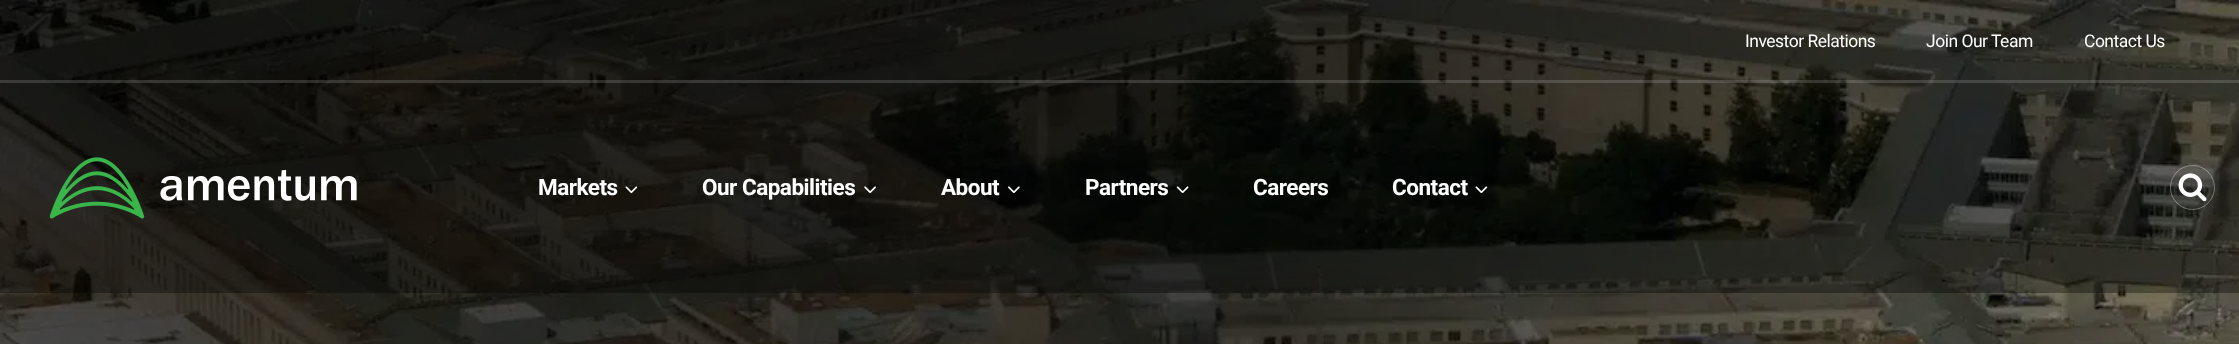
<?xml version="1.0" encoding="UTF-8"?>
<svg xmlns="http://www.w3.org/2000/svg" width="2239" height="344">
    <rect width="100%" height="100%" fill="#FFFFFF"/>
    <image x="0" y="0" width="2239" height="344" href="img_01.png"/>
    <rect x="0" y="0" width="2239" height="293" fill="#000000" fill-opacity="0.35"/>
    <rect x="0" y="80" width="2239" height="3" fill="#FFFFFF" fill-opacity="0.15"/>
    <text x="1745" y="47" font-family="Roboto" font-size="17.5" letter-spacing="-0.5" fill="#FFFFFF">Investor Relations</text>
    <text x="1926" y="47" font-family="Roboto" font-size="17.5" letter-spacing="-0.5" fill="#FFFFFF">Join Our Team</text>
    <text x="2084" y="47" font-family="Roboto" font-size="17.5" letter-spacing="-0.5" fill="#FFFFFF">Contact Us</text>
    <image x="49" y="157" width="308" height="62" href="img_02.png"/>
    <text x="538" y="195" font-family="Roboto" font-size="22.5" font-weight="700" letter-spacing="-0.5" fill="#FFFFFF">Markets</text>
    <image x="625" y="186" width="13" height="8" href="img_03.png"/>
    <text x="702" y="195" font-family="Roboto" font-size="22.5" font-weight="700" letter-spacing="-0.5" fill="#FFFFFF">Our Capabilities</text>
    <image x="864" y="186" width="12" height="8" href="img_04.png"/>
    <text x="941" y="195" font-family="Roboto" font-size="22.5" font-weight="700" letter-spacing="-0.5" fill="#FFFFFF">About</text>
    <image x="1008" y="186" width="12" height="8" href="img_05.png"/>
    <text x="1085" y="195" font-family="Roboto" font-size="22.5" font-weight="700" letter-spacing="-0.5" fill="#FFFFFF">Partners</text>
    <image x="1176" y="186" width="13" height="8" href="img_06.png"/>
    <text x="1253" y="195" font-family="Roboto" font-size="22.5" font-weight="700" letter-spacing="-0.5" fill="#FFFFFF">Careers</text>
    <text x="1392" y="195" font-family="Roboto" font-size="22.5" font-weight="700" letter-spacing="-0.5" fill="#FFFFFF">Contact</text>
    <image x="1475" y="186" width="13" height="8" href="img_07.png"/>
    <circle cx="2192.5" cy="187.5" r="22" fill="none" stroke="#FFFFFF" stroke-opacity="0.35"/>
    <image x="2178" y="173" width="29" height="28" href="img_08.png"/>
</svg>
